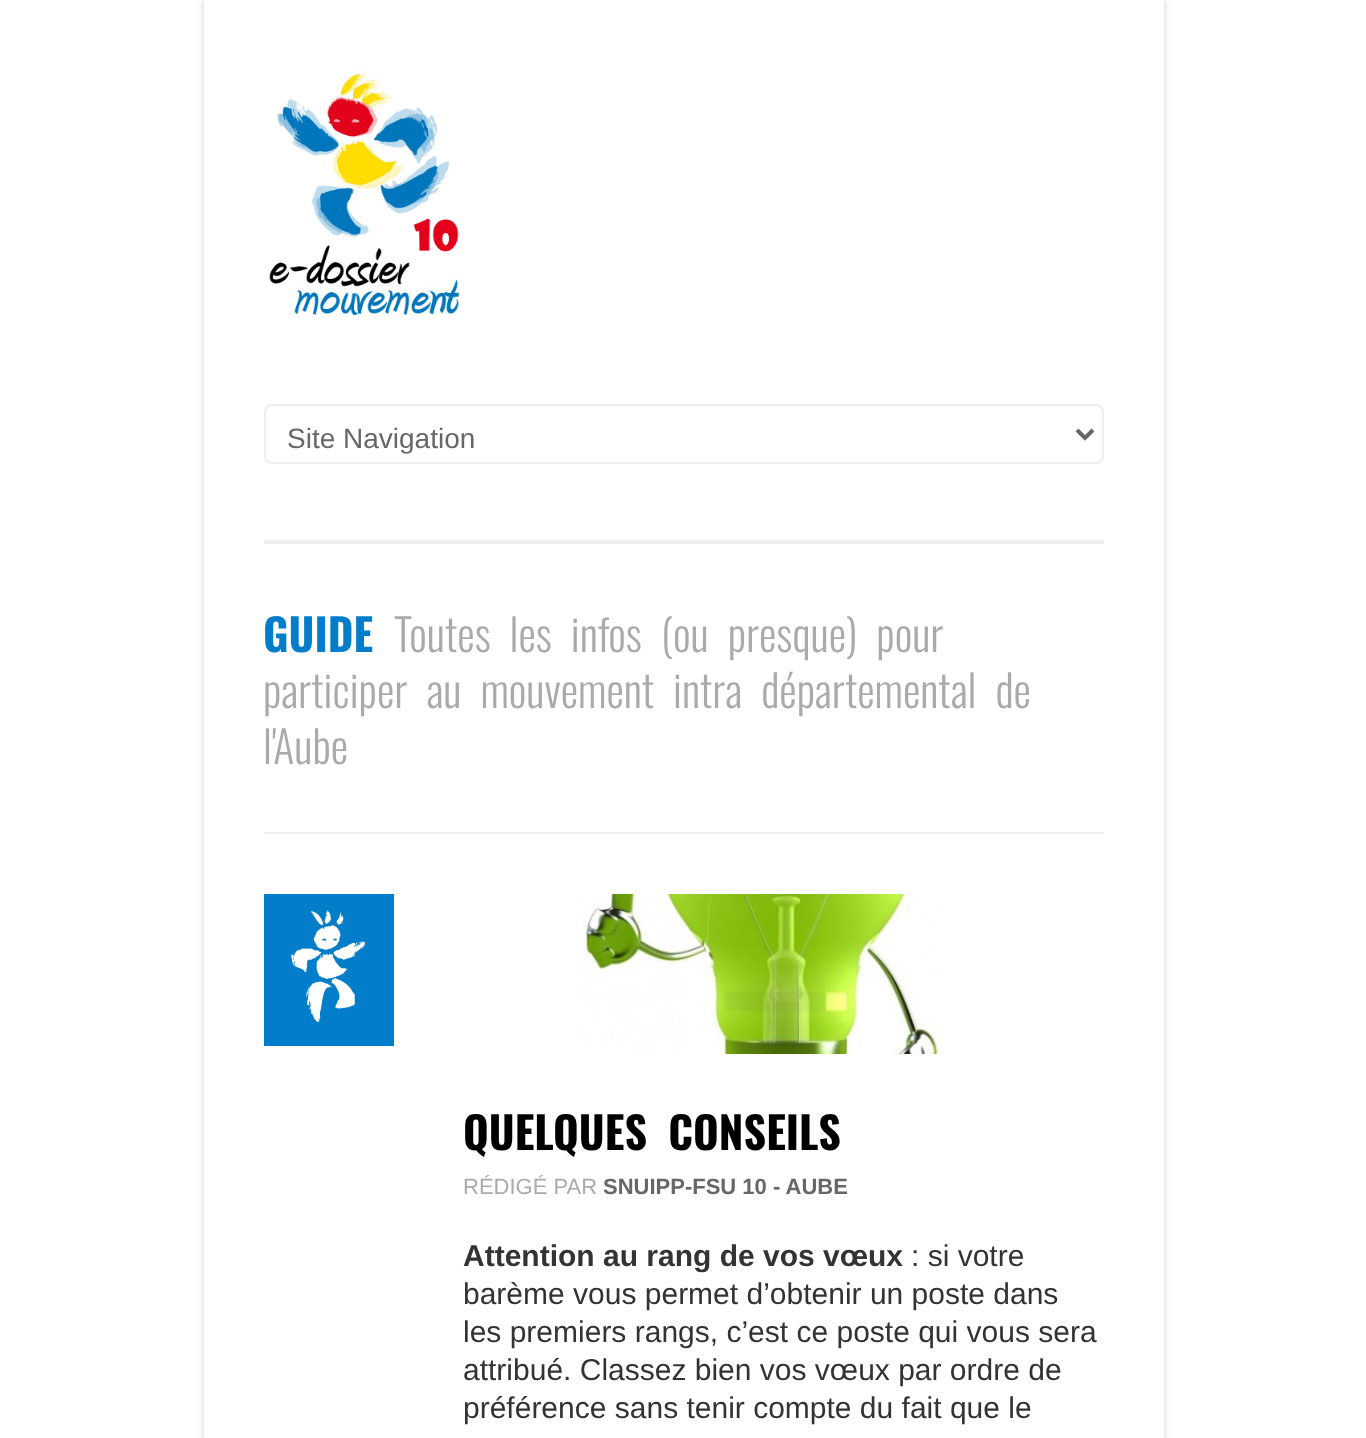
<?xml version="1.0" encoding="UTF-8"?>
<svg xmlns="http://www.w3.org/2000/svg" width="1366" height="1438">
    <defs>
        <clipPath id="clip1"><path d="M 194 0 H 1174 V 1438 H 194 Z M 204 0 H 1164 V 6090 H 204 Z" clip-rule="evenodd"/></clipPath>
        <filter id="blur1" x="-50%" y="-200%" width="200%" height="500%"><feGaussianBlur stdDeviation="3"/></filter>
    </defs>
    <rect width="100%" height="100%" fill="#FFFFFF"/>
    <g clip-path="url(#clip1)">
        <rect x="204" y="0" width="960" height="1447" fill="#000000" fill-opacity="0.2" filter="url(#blur1)"/>
    </g>
    <rect x="264" y="540" width="840" height="4" fill="#EEEEEE"/>
    <image x="269" y="70" width="194" height="246" href="img_01.png"/>
    <rect x="265" y="405" width="838" height="58" rx="7" fill="none" stroke="#EEEEEE" stroke-width="2"/>
    <path d="M 1077 430 L 1085 438 L 1093 430" fill="none" stroke="#676767" stroke-width="4"/>
    <text x="287" y="448" font-family="Liberation Sans" font-size="28" fill="#676767">Site Navigation</text>
    <rect x="264" y="832" width="840" height="2" fill="#EEEEEE"/>
    <text x="263" y="652" font-family="Oswald" font-size="44" font-weight="700" fill="#027DCA">GUIDE</text>
    <text x="394" y="652" word-spacing="10" font-family="Oswald" font-size="44" font-weight="300" fill="#AAAAAA">Toutes les infos (ou presque) pour</text>
    <text font-family="Oswald" font-size="44" font-weight="300" fill="#AAAAAA">
        <tspan x="263" y="708" word-spacing="10">participer au mouvement intra départemental de</tspan>
        <tspan x="263" y="764">l'Aube</tspan>
    </text>
    <rect x="264" y="894" width="130" height="152" fill="#027DCA"/>
    <image x="291" y="910" width="75" height="112" href="img_02.png"/>
    <image x="582" y="894" width="360" height="160" href="img_03.png"/>
    <text x="463" y="1150" word-spacing="10" font-family="Oswald" font-size="44" font-weight="700" fill="#000000">QUELQUES CONSEILS</text>
    <text x="463" y="1194" font-family="Liberation Sans" font-size="22" fill="#AAAAAA">RÉDIGÉ PAR</text>
    <text x="603" y="1194" font-family="Liberation Sans" font-size="22" font-weight="700" fill="#676767">SNUIPP-FSU 10 - AUBE</text>
    <text x="463" y="1266" font-family="Liberation Sans" font-size="30" font-weight="700" fill="#333333">Attention au rang de vos vœux</text>
    <text x="911" y="1266" font-family="Liberation Sans" font-size="30" fill="#333333">: si votre</text>
    <text font-family="Liberation Sans" font-size="30" fill="#333333">
        <tspan x="463" y="1304">barème vous permet d’obtenir un poste dans</tspan>
        <tspan x="463" y="1342">les premiers rangs, c’est ce poste qui vous sera</tspan>
        <tspan x="463" y="1380">attribué. Classez bien vos vœux par ordre de</tspan>
        <tspan x="463" y="1418">préférence sans tenir compte du fait que le</tspan>
    </text>
</svg>
